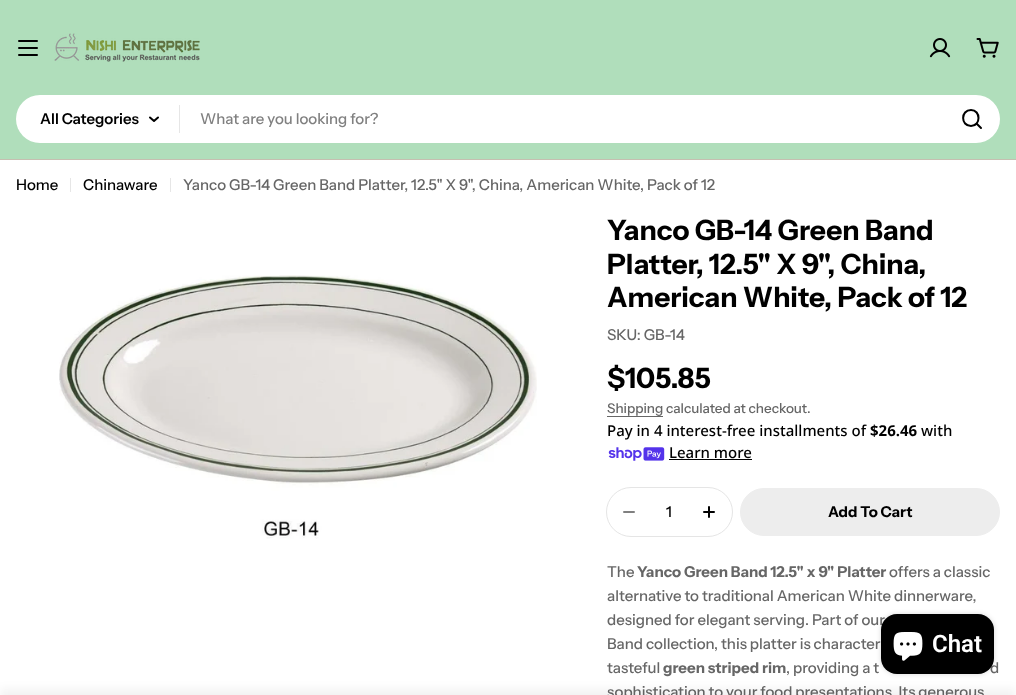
<?xml version="1.0" encoding="UTF-8"?>
<svg xmlns="http://www.w3.org/2000/svg" width="1016" height="695">
    <defs>
        <filter id="blur1" x="-50%" y="-200%" width="200%" height="500%"><feGaussianBlur stdDeviation="5"/></filter>
        <filter id="blur2" x="-50%" y="-200%" width="200%" height="500%"><feGaussianBlur stdDeviation="2.5"/></filter>
    </defs>
    <rect width="100%" height="100%" fill="#FFFFFF"/>
    <rect x="0" y="0" width="1016" height="159" fill="#B0DEBB"/>
    <rect x="18" y="47" width="20" height="2" rx="1" fill="#000000"/>
    <rect x="18" y="40" width="20" height="2" rx="1" fill="#000000"/>
    <rect x="18" y="54" width="20" height="2" rx="1" fill="#000000"/>
    <image x="54" y="33" width="146" height="29" href="img_01.png"/>
    <image x="929" y="38" width="22" height="20" href="img_02.png"/>
    <image x="976" y="38" width="23" height="20" href="img_03.png"/>
    <rect x="16" y="95" width="984" height="48" rx="24" fill="#FFFFFF"/>
    <text x="40" y="124" font-family="Instrument Sans" font-size="15" font-weight="600" fill="#000000">All Categories</text>
    <path d="M 158 117.5 L 154 121 L 150 117.5" fill="none" stroke="#000000" stroke-width="2" stroke-linecap="round" stroke-linejoin="round"/>
    <rect x="179" y="105" width="1" height="28" fill="#E6E6E6"/>
    <text x="200" y="124" font-family="Instrument Sans" font-size="15" font-weight="500" fill="#808080">What are you looking for?</text>
    <path d="M 971 126 C 981 126 981 110 971 110 C 960.5 110 960.5 126 971 126 Z M 976.5 123.5 L 981 128" fill="none" stroke="#000000" stroke-width="2" stroke-linecap="round" stroke-linejoin="round"/>
    <rect x="0" y="159" width="1016" height="1" fill="#C6BFB1"/>
    <text x="16" y="190" font-family="Instrument Sans" font-size="15" font-weight="500" fill="#000000">Home</text>
    <rect x="70" y="178" width="1" height="14" fill="#E6E6E6"/>
    <text x="83" y="190" font-family="Instrument Sans" font-size="15" font-weight="500" fill="#000000">Chinaware</text>
    <rect x="170" y="178" width="1" height="14" fill="#E6E6E6"/>
    <text x="183" y="190" font-family="Instrument Sans" font-size="15" font-weight="500" fill="#666666">Yanco GB-14 Green Band Platter, 12.5" X 9", China, American White, Pack of 12</text>
    <image x="59" y="275" width="478" height="264" href="img_04.png"/>
    <text font-family="Instrument Sans" font-size="28" font-weight="700" fill="#000000">
        <tspan x="607" y="240">Yanco GB-14 Green Band</tspan>
        <tspan x="607" y="274">Platter, 12.5" X 9", China,</tspan>
        <tspan x="607" y="307">American White, Pack of 12</tspan>
    </text>
    <text x="607" y="340" font-family="Instrument Sans" font-size="15" font-weight="500" fill="#666666">SKU: GB-14</text>
    <text x="607" y="388" font-family="Instrument Sans" font-size="28" font-weight="700" fill="#000000">$105.85</text>
    <text x="607" y="413" font-family="Instrument Sans" font-size="13.5" font-weight="500" fill="#666666">Shipping calculated at checkout.</text>
    <rect x="607" y="416" width="56" height="1" fill="#666666"/>
    <text x="607" y="436" font-family="Noto Sans" font-size="15" font-weight="500" fill="#000000">Pay in 4 interest-free installments of</text>
    <text x="870" y="436" font-family="Noto Sans" font-size="15" font-weight="700" fill="#000000">$26.46</text>
    <text x="921" y="436" font-family="Noto Sans" font-size="15" font-weight="500" fill="#000000">with</text>
    <image x="608" y="447" width="57" height="14" href="img_05.png"/>
    <text x="669" y="458" font-family="Noto Sans" font-size="15" font-weight="500" fill="#000000">Learn more</text>
    <rect x="669" y="459" width="83" height="1" fill="#000000"/>
    <rect x="606.5" y="487.5" width="126" height="49" rx="24.5" fill="none" stroke="#E5E5E5"/>
    <path d="M 624 512 H 634" fill="none" stroke="#808080" stroke-width="2" stroke-linecap="round" stroke-linejoin="round"/>
    <text x="666" y="517" font-family="Instrument Sans" font-size="15" font-weight="500" fill="#000000">1</text>
    <path d="M 704 512 H 714 M 709 507 V 517" fill="none" stroke="#000000" stroke-width="2" stroke-linecap="round" stroke-linejoin="round"/>
    <rect x="740.5" y="488.5" width="259" height="47" rx="23.5" fill="#EDEDED" stroke="#EDEDED"/>
    <text x="828" y="517" font-family="Instrument Sans" font-size="15" font-weight="700" fill="#000000">Add To Cart</text>
    <text x="607" y="577" font-family="Instrument Sans" font-size="15" font-weight="500" fill="#666666">The</text>
    <text x="637" y="577" font-family="Instrument Sans" font-size="15" font-weight="700" fill="#666666">Yanco Green Band 12.5" x 9" Platter</text>
    <text x="889" y="577" font-family="Instrument Sans" font-size="15" font-weight="500" fill="#666666">offers a classic</text>
    <text font-family="Instrument Sans" font-size="15" font-weight="500" fill="#666666">
        <tspan x="607" y="601">alternative to traditional American White dinnerware,</tspan>
        <tspan x="607" y="625">designed for elegant serving. Part of our</tspan>
        <tspan x="607" y="649">Band collection, this platter is character</tspan>
        <tspan x="607" y="673">tasteful</tspan>
    </text>
    <text x="663" y="673" font-family="Instrument Sans" font-size="15" font-weight="700" fill="#666666">green striped rim</text>
    <text x="786" y="673" font-family="Instrument Sans" font-size="15" font-weight="500" fill="#666666">, providing a t</text>
    <text x="990" y="673" font-family="Instrument Sans" font-size="15" font-weight="500" fill="#666666">d</text>
    <text x="607" y="697" font-family="Instrument Sans" font-size="15" font-weight="500" fill="#666666">sophistication to your food presentations. Its generous</text>
    <rect x="0" y="689" width="1016" height="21" fill="#000000" fill-opacity="0.05" filter="url(#blur1)"/>
    <rect x="881" y="614" width="113" height="60" rx="16" fill="#000000" fill-opacity="0.15" filter="url(#blur2)"/>
    <rect x="881" y="614" width="113" height="60" rx="16" fill="#000000"/>
    <image x="893" y="632" width="30" height="29" href="img_06.png"/>
    <text x="932" y="652" font-family="Roboto" font-size="24" font-weight="600" fill="#FFFFFF">Chat</text>
</svg>
